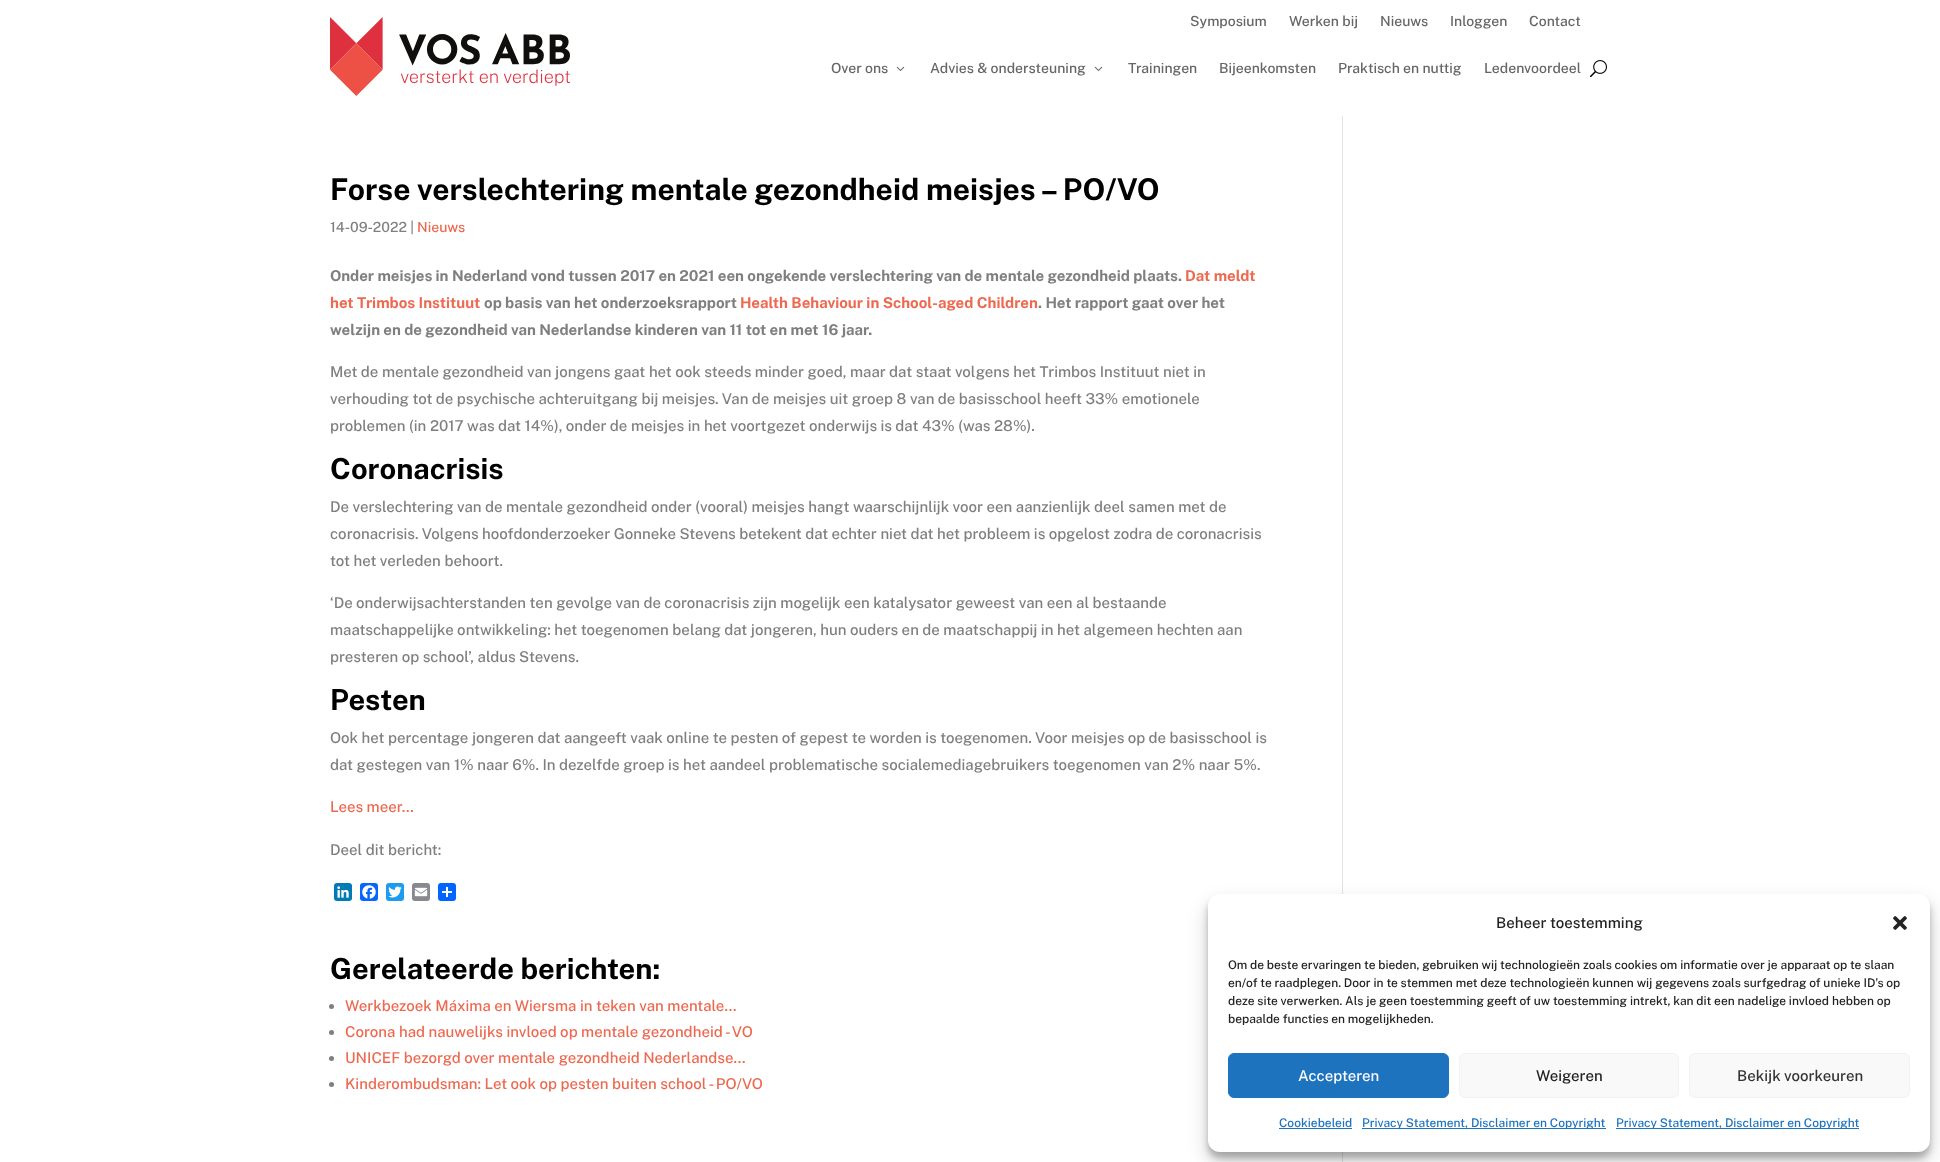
<?xml version="1.0" encoding="UTF-8"?>
<svg xmlns="http://www.w3.org/2000/svg" width="1940" height="1162">
    <defs>
        <filter id="blur1" x="-50%" y="-200%" width="200%" height="500%"><feGaussianBlur stdDeviation="3"/></filter>
        <filter id="blur2" x="-50%" y="-200%" width="200%" height="500%"><feGaussianBlur stdDeviation="10"/></filter>
    </defs>
    <rect width="100%" height="100%" fill="#FFFFFF"/>
    <image x="330" y="17" width="240" height="79" href="img_01.png"/>
    <text x="1190" y="26" font-family="'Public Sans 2'" font-size="14" font-weight="100" fill="#666666">Symposium</text>
    <text x="1289" y="26" font-family="'Public Sans 2'" font-size="14" font-weight="100" fill="#666666">Werken bij</text>
    <text x="1380" y="26" font-family="'Public Sans 2'" font-size="14" font-weight="100" fill="#666666">Nieuws</text>
    <text x="1450" y="26" font-family="'Public Sans 2'" font-size="14" font-weight="100" fill="#666666">Inloggen</text>
    <text x="1529" y="26" font-family="'Public Sans 2'" font-size="14" font-weight="100" fill="#666666">Contact</text>
    <text x="831" y="73" font-family="'Public Sans 2'" font-size="14" font-weight="100" fill="#666666">Over ons</text>
    <image x="896" y="66" width="9" height="5" href="img_02.png"/>
    <text x="930" y="73" font-family="'Public Sans 2'" font-size="14" font-weight="100" fill="#666666">Advies &amp; ondersteuning</text>
    <image x="1094" y="66" width="9" height="5" href="img_02.png"/>
    <text x="1128" y="73" font-family="'Public Sans 2'" font-size="14" font-weight="100" fill="#666666">Trainingen</text>
    <text x="1219" y="73" font-family="'Public Sans 2'" font-size="14" font-weight="100" fill="#666666">Bijeenkomsten</text>
    <text x="1338" y="73" font-family="'Public Sans 2'" font-size="14" font-weight="100" fill="#666666">Praktisch en nuttig</text>
    <text x="1484" y="73" font-family="'Public Sans 2'" font-size="14" font-weight="100" fill="#666666">Ledenvoordeel</text>
    <image x="1590" y="60" width="17" height="18" href="img_03.png"/>
    <text x="330" y="200" font-family="Public Sans" font-size="30" font-weight="100" fill="#000000">Forse verslechtering mentale gezondheid meisjes – PO/VO</text>
    <text x="330" y="232" font-family="'Public Sans 2'" font-size="14" font-weight="100" fill="#7F7F7F">14-09-2022 |</text>
    <text x="417" y="232" font-family="'Public Sans 2'" font-size="14" font-weight="100" fill="#ED6950">Nieuws</text>
    <text x="330" y="281" font-family="Public Sans" font-size="15" font-weight="100" fill="#7F7F7F">Onder meisjes in Nederland vond tussen 2017 en 2021 een ongekende verslechtering van de mentale gezondheid plaats.</text>
    <text x="1185" y="281" font-family="Public Sans" font-size="15" font-weight="100" fill="#ED6950">Dat meldt</text>
    <text x="330" y="308" font-family="Public Sans" font-size="15" font-weight="100" fill="#ED6950">het Trimbos Instituut</text>
    <text x="484" y="308" font-family="Public Sans" font-size="15" font-weight="100" fill="#7F7F7F">op basis van het onderzoeksrapport</text>
    <text x="740" y="308" font-family="Public Sans" font-size="15" font-weight="100" fill="#ED6950">Health Behaviour in School-aged Children</text>
    <text x="1038" y="308" font-family="Public Sans" font-size="15" font-weight="100" fill="#7F7F7F">. Het rapport gaat over het</text>
    <text x="330" y="335" font-family="Public Sans" font-size="15" font-weight="100" fill="#7F7F7F">welzijn en de gezondheid van Nederlandse kinderen van 11 tot en met 16 jaar.</text>
    <text font-family="'Public Sans 2'" font-size="15" font-weight="100" fill="#7F7F7F">
        <tspan x="330" y="377">Met de mentale gezondheid van jongens gaat het ook steeds minder goed, maar dat staat volgens het Trimbos Instituut niet in</tspan>
        <tspan x="330" y="404">verhouding tot de psychische achteruitgang bij meisjes. Van de meisjes uit groep 8 van de basisschool heeft 33% emotionele</tspan>
        <tspan x="330" y="431">problemen (in 2017 was dat 14%), onder de meisjes in het voortgezet onderwijs is dat 43% (was 28%).</tspan>
    </text>
    <text x="330" y="479" font-family="Public Sans" font-size="29" font-weight="100" fill="#000000">Coronacrisis</text>
    <text font-family="'Public Sans 2'" font-size="15" font-weight="100" fill="#7F7F7F">
        <tspan x="330" y="512">De verslechtering van de mentale gezondheid onder (vooral) meisjes hangt waarschijnlijk voor een aanzienlijk deel samen met de</tspan>
        <tspan x="330" y="539">coronacrisis. Volgens hoofdonderzoeker Gonneke Stevens betekent dat echter niet dat het probleem is opgelost zodra de coronacrisis</tspan>
        <tspan x="330" y="566">tot het verleden behoort.</tspan>
    </text>
    <text font-family="'Public Sans 2'" font-size="15" font-weight="100" fill="#7F7F7F">
        <tspan x="330" y="608">‘De onderwijsachterstanden ten gevolge van de coronacrisis zijn mogelijk een katalysator geweest van een al bestaande</tspan>
        <tspan x="330" y="635">maatschappelijke ontwikkeling: het toegenomen belang dat jongeren, hun ouders en de maatschappij in het algemeen hechten aan</tspan>
        <tspan x="330" y="662">presteren op school’, aldus Stevens.</tspan>
    </text>
    <text x="330" y="710" font-family="Public Sans" font-size="29" font-weight="100" fill="#000000">Pesten</text>
    <text font-family="'Public Sans 2'" font-size="15" font-weight="100" fill="#7F7F7F">
        <tspan x="330" y="743">Ook het percentage jongeren dat aangeeft vaak online te pesten of gepest te worden is toegenomen. Voor meisjes op de basisschool is</tspan>
        <tspan x="330" y="770">dat gestegen van 1% naar 6%. In dezelfde groep is het aandeel problematische socialemediagebruikers toegenomen van 2% naar 5%.</tspan>
    </text>
    <text x="330" y="812" font-family="'Public Sans 2'" font-size="15" font-weight="100" fill="#ED6950">Lees meer…</text>
    <text x="330" y="855" font-family="'Public Sans 2'" font-size="15" font-weight="100" fill="#7F7F7F">Deel dit bericht:</text>
    <rect x="334" y="883" width="18" height="18" rx="3" fill="#007BB5"/>
    <image x="337" y="886" width="12" height="12" href="img_04.png"/>
    <rect x="360" y="883" width="18" height="18" rx="3" fill="#0866FF"/>
    <image x="362" y="885" width="14" height="14" href="img_05.png"/>
    <rect x="386" y="883" width="18" height="18" rx="3" fill="#1D9BF0"/>
    <image x="388" y="886" width="14" height="12" href="img_06.png"/>
    <rect x="412" y="883" width="18" height="18" rx="3" fill="#888990"/>
    <image x="414" y="887" width="14" height="10" href="img_07.png"/>
    <rect x="438" y="883" width="18" height="18" rx="3" fill="#0166FF"/>
    <rect x="446" y="887" width="2" height="10" fill="#FFFFFF"/>
    <rect x="442" y="891" width="10" height="2" fill="#FFFFFF"/>
    <text x="330" y="979" font-family="Public Sans" font-size="29" font-weight="100" fill="#000000">Gerelateerde berichten:</text>
    <circle cx="331.5" cy="1006.5" r="2.5" fill="#7F7F7F"/>
    <text x="345" y="1011" font-family="'Public Sans 2'" font-size="15" font-weight="100" fill="#ED6950">Werkbezoek Máxima en Wiersma in teken van mentale…</text>
    <circle cx="331.5" cy="1032.5" r="2.5" fill="#7F7F7F"/>
    <text x="345" y="1037" font-family="'Public Sans 2'" font-size="15" font-weight="100" fill="#ED6950">Corona had nauwelijks invloed op mentale gezondheid - VO</text>
    <circle cx="331.5" cy="1058.5" r="2.5" fill="#7F7F7F"/>
    <text x="345" y="1063" font-family="'Public Sans 2'" font-size="15" font-weight="100" fill="#ED6950">UNICEF bezorgd over mentale gezondheid Nederlandse…</text>
    <circle cx="331.5" cy="1084.5" r="2.5" fill="#7F7F7F"/>
    <text x="345" y="1089" font-family="'Public Sans 2'" font-size="15" font-weight="100" fill="#ED6950">Kinderombudsman: Let ook op pesten buiten school - PO/VO</text>
    <rect x="1342" y="116" width="1" height="1046" fill="#E2E2E2"/>
    <rect x="1208" y="900" width="722" height="258" rx="12" fill="#000000" fill-opacity="0.23" filter="url(#blur1)"/>
    <rect x="1208" y="904" width="722" height="258" rx="12" fill="#000000" fill-opacity="0.19" filter="url(#blur2)"/>
    <rect x="1208" y="894" width="722" height="258" rx="12" fill="#FFFFFF"/>
    <text x="1496" y="928" font-family="'Public Sans 2'" font-size="15" font-weight="100" fill="#222222">Beheer toestemming</text>
    <image x="1893" y="916" width="14" height="14" href="img_08.png"/>
    <text font-family="'Public Sans 2'" font-size="12" font-weight="100" fill="#222222">
        <tspan x="1228" y="969">Om de beste ervaringen te bieden, gebruiken wij technologieën zoals cookies om informatie over je apparaat op te slaan</tspan>
        <tspan x="1228" y="987">en/of te raadplegen. Door in te stemmen met deze technologieën kunnen wij gegevens zoals surfgedrag of unieke ID's op</tspan>
        <tspan x="1228" y="1005">deze site verwerken. Als je geen toestemming geeft of uw toestemming intrekt, kan dit een nadelige invloed hebben op</tspan>
        <tspan x="1228" y="1023">bepaalde functies en mogelijkheden.</tspan>
    </text>
    <rect x="1228.5" y="1053.5" width="220" height="44" rx="5.5" fill="#1E73BE" stroke="#1E73BE"/>
    <text x="1298" y="1081" font-family="'Public Sans 2'" font-size="15" font-weight="100" fill="#FFFFFF">Accepteren</text>
    <rect x="1459.5" y="1053.5" width="219" height="44" rx="5.5" fill="#F9F9F9" stroke="#F2F2F2"/>
    <text x="1536" y="1081" font-family="'Public Sans 2'" font-size="15" font-weight="100" fill="#222222">Weigeren</text>
    <rect x="1689.5" y="1053.5" width="220" height="44" rx="5.5" fill="#F9F9F9" stroke="#F2F2F2"/>
    <text x="1737" y="1081" font-family="'Public Sans 2'" font-size="15" font-weight="100" fill="#333333">Bekijk voorkeuren</text>
    <text x="1279" y="1127" font-family="'Public Sans 2'" font-size="12" font-weight="100" fill="#1E73BE">Cookiebeleid</text>
    <rect x="1279" y="1128" width="73" height="1" fill="#1E73BE"/>
    <rect x="1362" y="1128" width="244" height="1" fill="#1E73BE"/>
    <text x="1362" y="1127" font-family="'Public Sans 2'" font-size="12" font-weight="100" fill="#1E73BE">Privacy Statement, Disclaimer en Copyright</text>
    <rect x="1616" y="1128" width="243" height="1" fill="#1E73BE"/>
    <text x="1616" y="1127" font-family="'Public Sans 2'" font-size="12" font-weight="100" fill="#1E73BE">Privacy Statement, Disclaimer en Copyright</text>
</svg>
